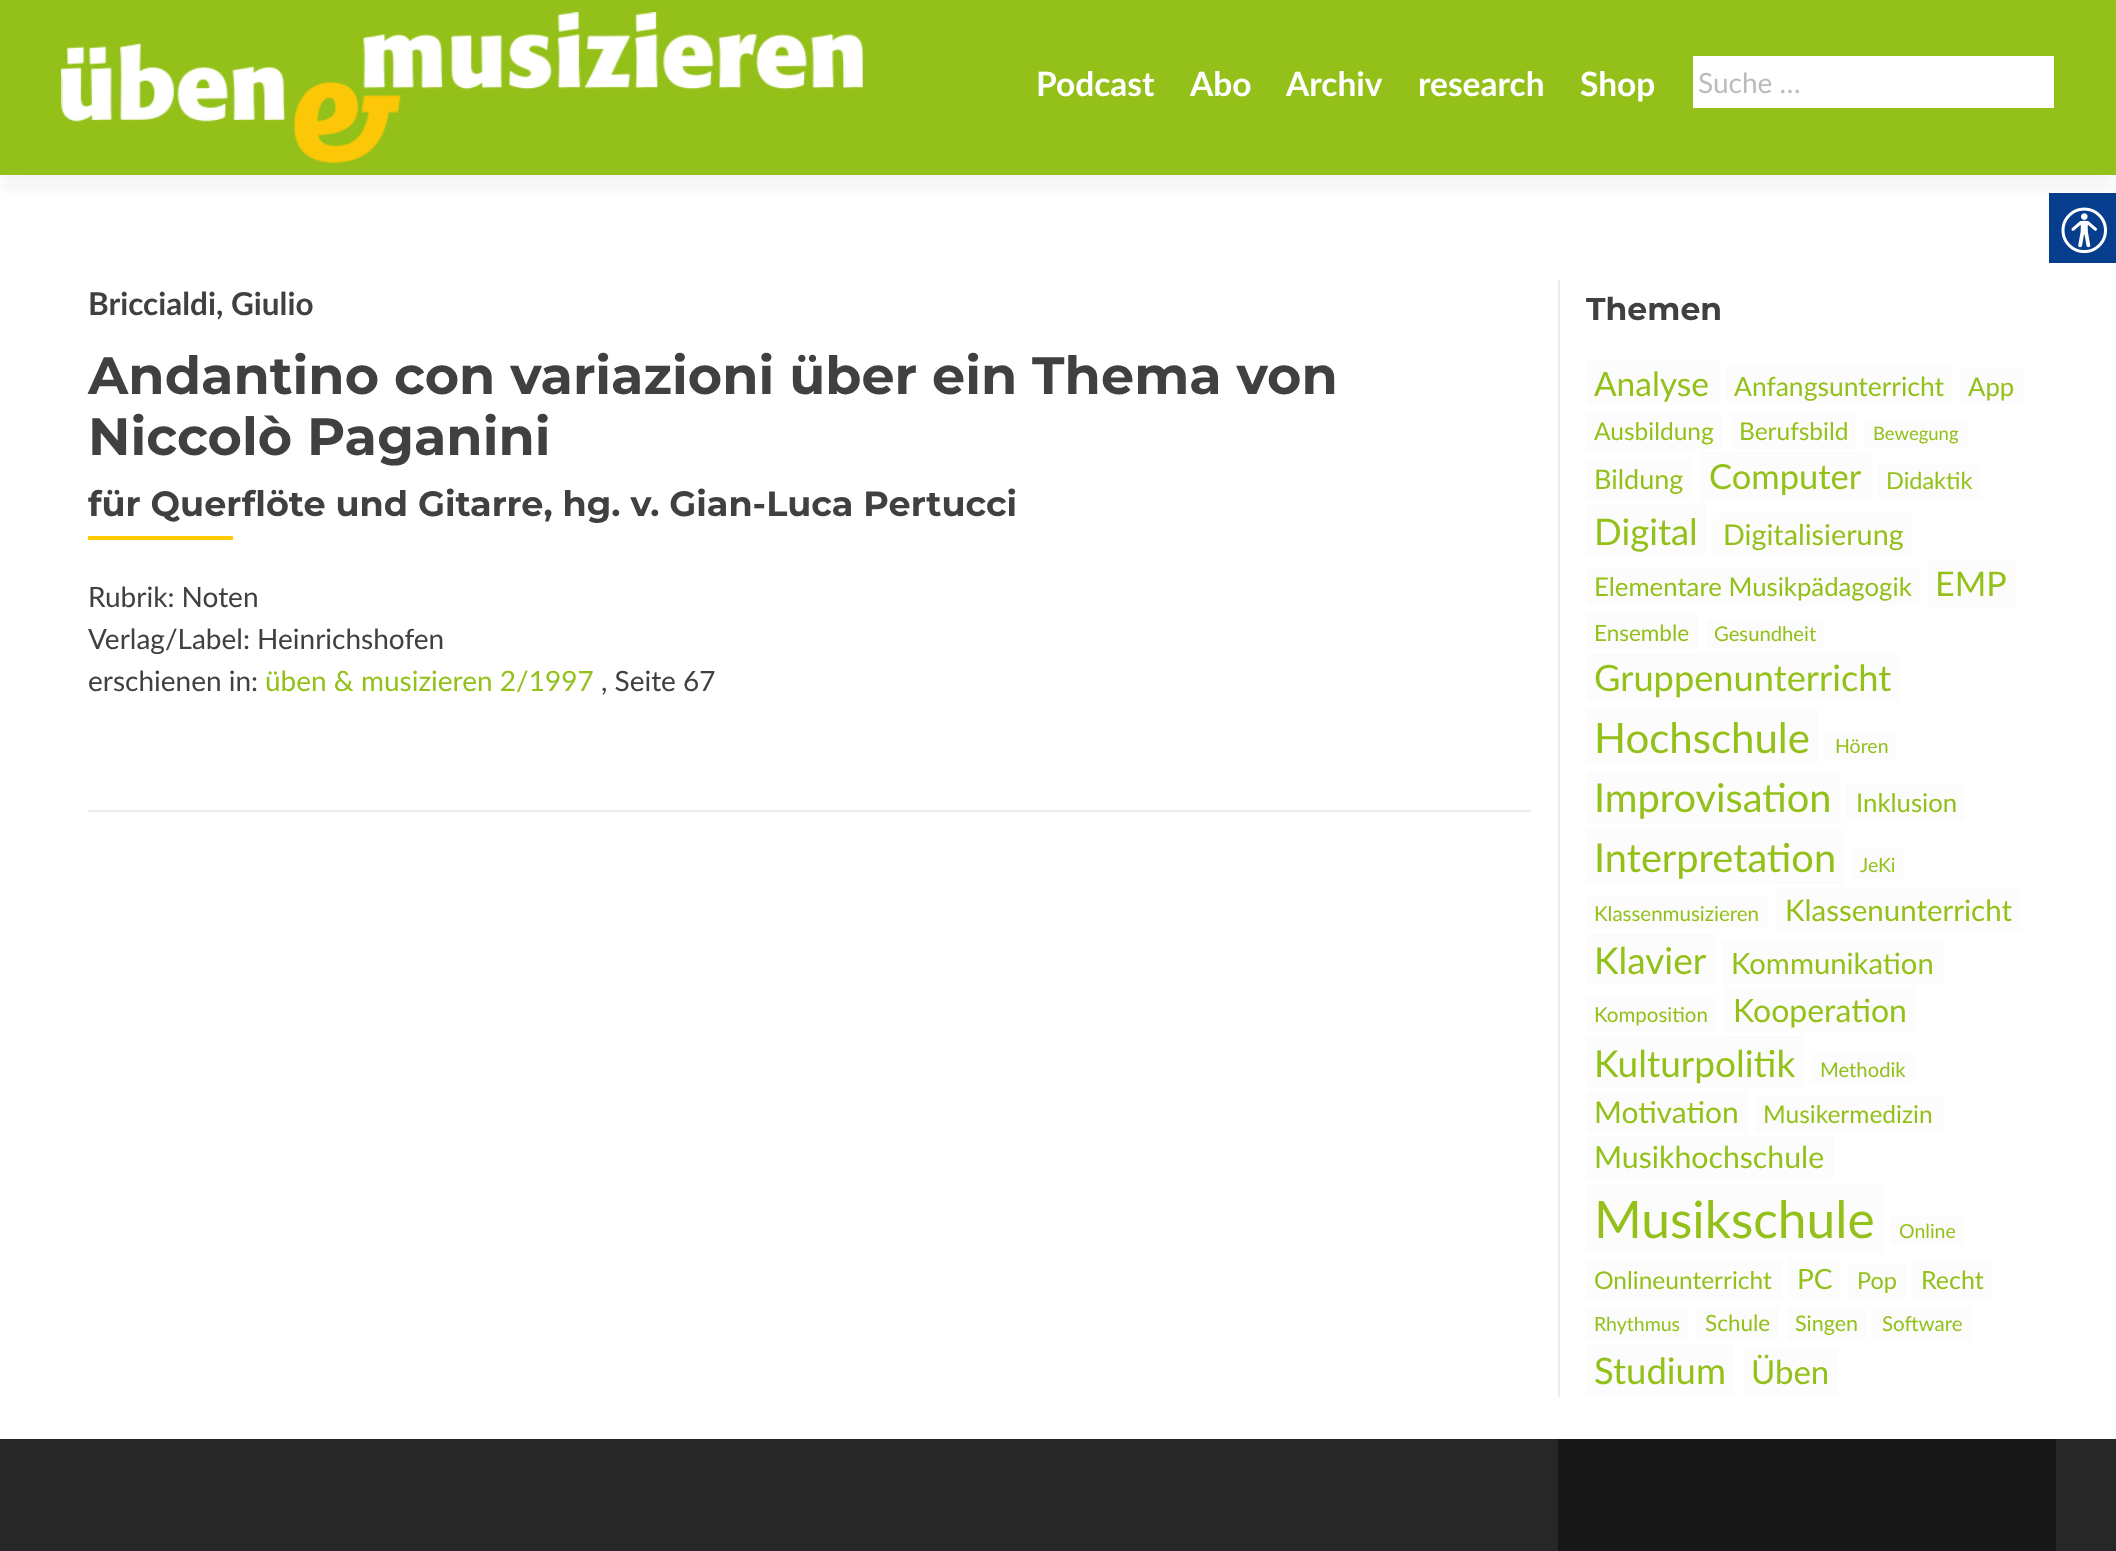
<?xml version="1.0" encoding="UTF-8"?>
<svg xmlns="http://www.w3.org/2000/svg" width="2116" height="1551">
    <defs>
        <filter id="blur1" x="-50%" y="-200%" width="200%" height="500%"><feGaussianBlur stdDeviation="9.5"/></filter>
        <clipPath id="clip1"><rect x="88" y="280" width="1443" height="450"/></clipPath>
    </defs>
    <rect width="100%" height="100%" fill="#FFFFFF"/>
    <rect x="0" y="9" width="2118" height="175" fill="#323232" fill-opacity="0.08" filter="url(#blur1)"/>
    <rect x="0" y="0" width="2116" height="175" fill="#94C01A"/>
    <image x="61" y="12" width="802" height="151" href="img_01.png"/>
    <text x="1036" y="96" font-family="Lato" font-size="33.5" font-weight="700" fill="#FFFFFF">Podcast</text>
    <text x="1190" y="96" font-family="Lato" font-size="33.5" font-weight="700" fill="#FFFFFF">Abo</text>
    <text x="1286" y="96" font-family="Lato" font-size="33.5" font-weight="700" fill="#FFFFFF">Archiv</text>
    <text x="1418" y="96" font-family="Lato" font-size="33.5" font-weight="700" fill="#FFFFFF">research</text>
    <text x="1580" y="96" font-family="Lato" font-size="33.5" font-weight="700" fill="#FFFFFF">Shop</text>
    <rect x="1693" y="56" width="361" height="52" fill="#FFFFFF"/>
    <text x="1698" y="93" font-family="Lato" font-size="28" fill="#BBBBBB">Suche …</text>
    <rect x="88" y="810" width="1443" height="2" fill="#EDEDED"/>
    <text x="88" y="315" font-family="Lato" font-size="31.5" font-weight="700" fill="#404040">Briccialdi, Giulio</text>
    <text font-family="Montserrat" font-size="52.5" font-weight="700" fill="#404040">
        <tspan x="88" y="394">Andantino con variazioni über ein Thema von</tspan>
        <tspan x="88" y="455">Niccolò Paganini</tspan>
    </text>
    <g clip-path="url(#clip1)">
        <text x="88" y="516" font-family="Montserrat" font-size="35" font-weight="700" fill="#404040">für Querflöte und Gitarre, hg. v. Gian-Luca Pertucci</text>
    </g>
    <rect x="88" y="536" width="145" height="4" fill="#FFCB00"/>
    <text font-family="Lato" font-size="28" fill="#404040">
        <tspan x="88" y="607">Rubrik: Noten</tspan>
        <tspan x="88" y="649">Verlag/Label: Heinrichshofen</tspan>
        <tspan x="88" y="691">erschienen in:</tspan>
    </text>
    <text x="265" y="691" font-family="Lato" font-size="28" fill="#94C01A">üben &amp; musizieren 2/1997</text>
    <text x="601" y="691" font-family="Lato" font-size="28" fill="#404040">, Seite 67</text>
    <rect x="1558" y="280" width="2" height="1117" fill="#EDEDED"/>
    <text x="1586" y="320" font-family="Montserrat" font-size="31.5" font-weight="700" fill="#404040">Themen</text>
    <rect x="1586" y="359" width="133" height="47" fill="#FCFCFC"/>
    <text x="1594" y="396" font-family="Lato" font-size="33.5" fill="#94C01A">Analyse</text>
    <rect x="1726" y="366" width="227" height="38" fill="#FCFCFC"/>
    <text x="1734" y="396" font-family="Lato" font-size="26.5" fill="#94C01A">Anfangsunterricht</text>
    <rect x="1960" y="368" width="63" height="36" fill="#FCFCFC"/>
    <text x="1968" y="396" font-family="Lato" font-size="25.75" fill="#94C01A">App</text>
    <rect x="1586" y="413" width="136" height="37" fill="#FCFCFC"/>
    <text x="1594" y="440" font-family="Lato" font-size="24.5" fill="#94C01A">Ausbildung</text>
    <rect x="1731" y="413" width="126" height="37" fill="#FCFCFC"/>
    <text x="1739" y="440" font-family="Lato" font-size="24.5" fill="#94C01A">Berufsbild</text>
    <rect x="1864" y="418" width="103" height="30" fill="#FCFCFC"/>
    <text x="1873" y="440" font-family="Lato" font-size="18.5" fill="#94C01A">Bewegung</text>
    <rect x="1586" y="460" width="106" height="39" fill="#FCFCFC"/>
    <text x="1594" y="489" font-family="Lato" font-size="27" fill="#94C01A">Bildung</text>
    <rect x="1701" y="452" width="170" height="49" fill="#FCFCFC"/>
    <text x="1709" y="489" font-family="Lato" font-size="34.5" fill="#94C01A">Computer</text>
    <rect x="1878" y="464" width="103" height="35" fill="#FCFCFC"/>
    <text x="1886" y="489" font-family="Lato" font-size="23.5" fill="#94C01A">Didaktik</text>
    <rect x="1586" y="504" width="120" height="51" fill="#FCFCFC"/>
    <text x="1594" y="545" font-family="Lato" font-size="36.5" fill="#94C01A">Digital</text>
    <rect x="1713" y="513" width="200" height="42" fill="#FCFCFC"/>
    <text x="1723" y="545" font-family="Lato" font-size="28.75" fill="#94C01A">Digitalisierung</text>
    <rect x="1586" y="569" width="334" height="37" fill="#FCFCFC"/>
    <text x="1594" y="596" font-family="Lato" font-size="25.75" fill="#94C01A">Elementare Musikpädagogik</text>
    <rect x="1927" y="560" width="89" height="47" fill="#FCFCFC"/>
    <text x="1935" y="596" font-family="Lato" font-size="34" fill="#94C01A">EMP</text>
    <rect x="1586" y="614" width="112" height="35" fill="#FCFCFC"/>
    <text x="1594" y="641" font-family="Lato" font-size="22.5" fill="#94C01A">Ensemble</text>
    <rect x="1706" y="618" width="119" height="30" fill="#FCFCFC"/>
    <text x="1714" y="641" font-family="Lato" font-size="20.25" fill="#94C01A">Gesundheit</text>
    <rect x="1586" y="653" width="313" height="49" fill="#FCFCFC"/>
    <text x="1594" y="691" font-family="Lato" font-size="36.25" fill="#94C01A">Gruppenunterricht</text>
    <rect x="1586" y="707" width="232" height="58" fill="#FCFCFC"/>
    <text x="1594" y="753" font-family="Lato" font-size="42" fill="#94C01A">Hochschule</text>
    <rect x="1825" y="730" width="72" height="30" fill="#FCFCFC"/>
    <text x="1835" y="753" font-family="Lato" font-size="19.5" fill="#94C01A">Hören</text>
    <rect x="1586" y="770" width="253" height="54" fill="#FCFCFC"/>
    <text x="1594" y="812" font-family="Lato" font-size="39.75" fill="#94C01A">Improvisation</text>
    <rect x="1846" y="784" width="119" height="37" fill="#FCFCFC"/>
    <text x="1856" y="812" font-family="Lato" font-size="25.75" fill="#94C01A">Inklusion</text>
    <rect x="1586" y="830" width="259" height="54" fill="#FCFCFC"/>
    <text x="1594" y="872" font-family="Lato" font-size="39.75" fill="#94C01A">Interpretation</text>
    <rect x="1852" y="849" width="52" height="30" fill="#FCFCFC"/>
    <text x="1860" y="872" font-family="Lato" font-size="19.5" fill="#94C01A">JeKi</text>
    <rect x="1586" y="896" width="183" height="33" fill="#FCFCFC"/>
    <text x="1594" y="921" font-family="Lato" font-size="20.5" fill="#94C01A">Klassenmusizieren</text>
    <rect x="1776" y="887" width="245" height="44" fill="#FCFCFC"/>
    <text x="1785" y="921" font-family="Lato" font-size="29.5" fill="#94C01A">Klassenunterricht</text>
    <rect x="1586" y="933" width="129" height="51" fill="#FCFCFC"/>
    <text x="1594" y="974" font-family="Lato" font-size="37" fill="#94C01A">Klavier</text>
    <rect x="1722" y="942" width="221" height="42" fill="#FCFCFC"/>
    <text x="1731" y="974" font-family="Lato" font-size="29.25" fill="#94C01A">Kommunikation</text>
    <rect x="1586" y="998" width="131" height="33" fill="#FCFCFC"/>
    <text x="1594" y="1022" font-family="Lato" font-size="20.5" fill="#94C01A">Komposition</text>
    <rect x="1724" y="987" width="192" height="46" fill="#FCFCFC"/>
    <text x="1733" y="1022" font-family="Lato" font-size="32" fill="#94C01A">Kooperation</text>
    <rect x="1586" y="1036" width="218" height="51" fill="#FCFCFC"/>
    <text x="1594" y="1077" font-family="Lato" font-size="37" fill="#94C01A">Kulturpolitik</text>
    <rect x="1811" y="1054" width="104" height="29" fill="#FCFCFC"/>
    <text x="1820" y="1077" font-family="Lato" font-size="20.25" fill="#94C01A">Methodik</text>
    <rect x="1586" y="1090" width="162" height="44" fill="#FCFCFC"/>
    <text x="1594" y="1123" font-family="Lato" font-size="30" fill="#94C01A">Motivation</text>
    <rect x="1755" y="1096" width="188" height="36" fill="#FCFCFC"/>
    <text x="1763" y="1123" font-family="Lato" font-size="24.5" fill="#94C01A">Musikermedizin</text>
    <rect x="1586" y="1136" width="248" height="44" fill="#FCFCFC"/>
    <text x="1594" y="1168" font-family="Lato" font-size="30.25" fill="#94C01A">Musikhochschule</text>
    <rect x="1586" y="1185" width="297" height="68" fill="#FCFCFC"/>
    <text x="1594" y="1238" font-family="Lato" font-size="51.5" fill="#94C01A">Musikschule</text>
    <rect x="1890" y="1216" width="74" height="30" fill="#FCFCFC"/>
    <text x="1899" y="1238" font-family="Lato" font-size="19.5" fill="#94C01A">Online</text>
    <rect x="1586" y="1262" width="196" height="37" fill="#FCFCFC"/>
    <text x="1594" y="1289" font-family="Lato" font-size="24.5" fill="#94C01A">Onlineunterricht</text>
    <rect x="1789" y="1258" width="52" height="41" fill="#FCFCFC"/>
    <text x="1797" y="1289" font-family="Lato" font-size="28" fill="#94C01A">PC</text>
    <rect x="1848" y="1264" width="58" height="35" fill="#FCFCFC"/>
    <text x="1857" y="1289" font-family="Lato" font-size="23.5" fill="#94C01A">Pop</text>
    <rect x="1913" y="1262" width="80" height="37" fill="#FCFCFC"/>
    <text x="1921" y="1289" font-family="Lato" font-size="25" fill="#94C01A">Recht</text>
    <rect x="1586" y="1309" width="103" height="30" fill="#FCFCFC"/>
    <text x="1594" y="1331" font-family="Lato" font-size="19.5" fill="#94C01A">Rhythmus</text>
    <rect x="1696" y="1306" width="82" height="35" fill="#FCFCFC"/>
    <text x="1705" y="1331" font-family="Lato" font-size="22.5" fill="#94C01A">Schule</text>
    <rect x="1787" y="1307" width="79" height="34" fill="#FCFCFC"/>
    <text x="1795" y="1331" font-family="Lato" font-size="21.5" fill="#94C01A">Singen</text>
    <rect x="1873" y="1307" width="99" height="34" fill="#FCFCFC"/>
    <text x="1882" y="1331" font-family="Lato" font-size="20.5" fill="#94C01A">Software</text>
    <rect x="1586" y="1344" width="148" height="51" fill="#FCFCFC"/>
    <text x="1594" y="1384" font-family="Lato" font-size="36.5" fill="#94C01A">Studium</text>
    <rect x="1743" y="1349" width="95" height="46" fill="#FCFCFC"/>
    <text x="1751" y="1384" font-family="Lato" font-size="33" fill="#94C01A">Üben</text>
    <rect x="0" y="1439" width="2116" height="112" fill="#272727"/>
    <rect x="1558" y="1439" width="498" height="112" fill="#171717"/>
    <rect x="2049" y="193" width="67" height="70" fill="#063D8D"/>
    <image x="2061" y="207" width="46" height="47" href="img_02.png"/>
</svg>
